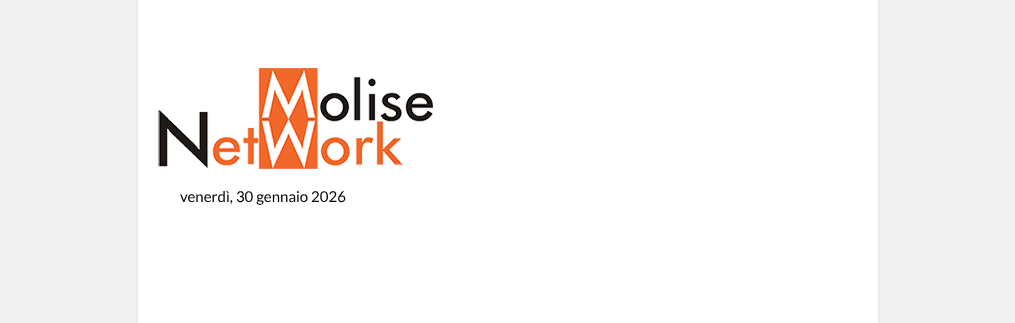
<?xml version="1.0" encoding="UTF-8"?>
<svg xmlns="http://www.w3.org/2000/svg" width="1015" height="323">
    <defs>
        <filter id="blur1" x="-50%" y="-200%" width="200%" height="500%"><feGaussianBlur stdDeviation="1"/></filter>
    </defs>
    <rect width="100%" height="100%" fill="#F0F0F0"/>
    <rect x="138" y="0" width="740" height="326" fill="#000000" fill-opacity="0.1" filter="url(#blur1)"/>
    <rect x="138" y="0" width="740" height="323" fill="#FFFFFF"/>
    <image x="158" y="68" width="275" height="101" href="img_01.png"/>
    <text x="180" y="202" font-family="Lato" font-size="15" fill="#000000">venerdì, 30 gennaio 2026</text>
</svg>
